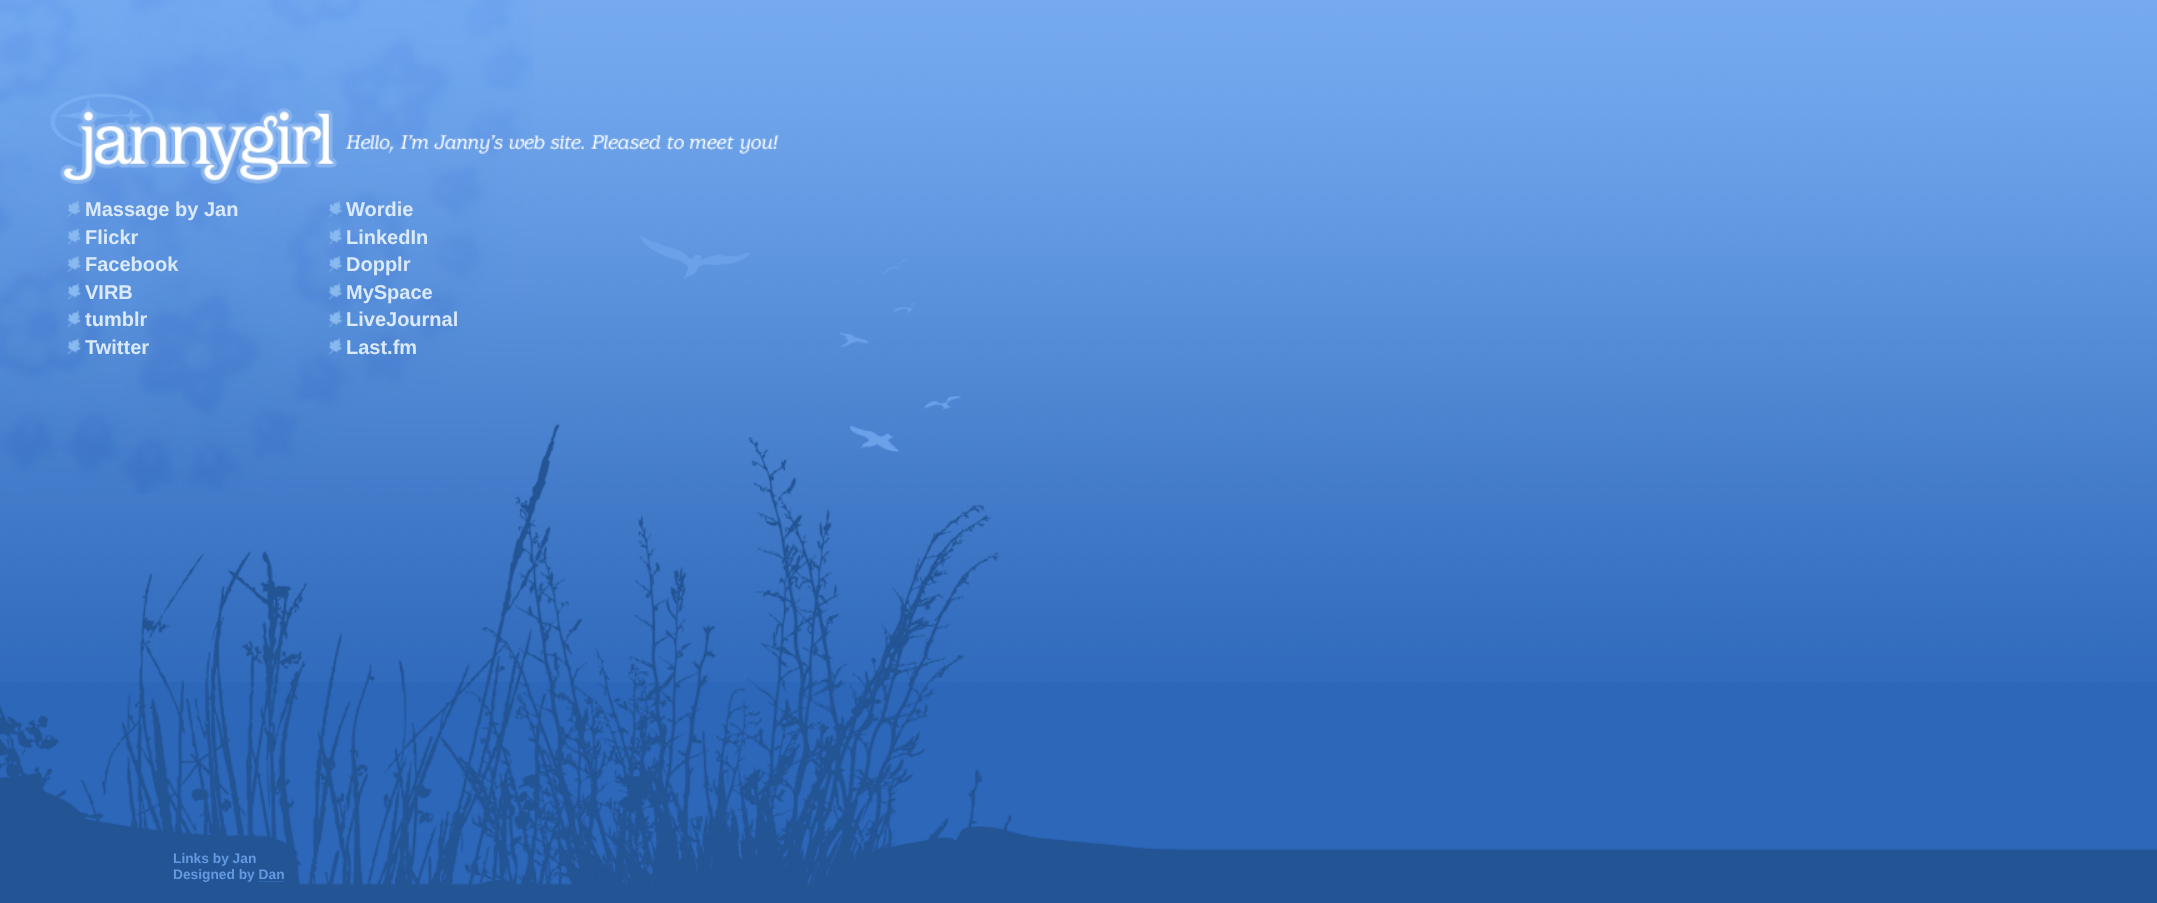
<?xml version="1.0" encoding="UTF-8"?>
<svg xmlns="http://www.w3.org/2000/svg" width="2157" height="903">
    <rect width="100%" height="100%" fill="#2D67B9"/>
    <image x="0" y="0" width="2157" height="682" href="img_01.png"/>
    <image x="0" y="0" width="534" height="494" href="img_02.png"/>
    <image x="0" y="235" width="2157" height="668" href="img_03.png"/>
    <image x="50" y="93" width="729" height="91" href="img_04.png"/>
    <image x="67" y="200" width="14" height="18" href="img_05.png"/>
    <text x="85" y="216" font-family="Liberation Sans" font-size="20" font-weight="700" fill="#DBEAFB">Massage by Jan</text>
    <image x="67" y="227" width="14" height="18" href="img_06.png"/>
    <text x="85" y="244" font-family="Liberation Sans" font-size="20" font-weight="700" fill="#DBEAFB">Flickr</text>
    <image x="67" y="255" width="14" height="18" href="img_07.png"/>
    <text x="85" y="271" font-family="Liberation Sans" font-size="20" font-weight="700" fill="#DBEAFB">Facebook</text>
    <image x="67" y="282" width="14" height="18" href="img_08.png"/>
    <text x="85" y="299" font-family="Liberation Sans" font-size="20" font-weight="700" fill="#DBEAFB">VIRB</text>
    <image x="67" y="310" width="14" height="18" href="img_09.png"/>
    <text x="85" y="326" font-family="Liberation Sans" font-size="20" font-weight="700" fill="#DBEAFB">tumblr</text>
    <image x="67" y="337" width="14" height="18" href="img_10.png"/>
    <text x="85" y="354" font-family="Liberation Sans" font-size="20" font-weight="700" fill="#DBEAFB">Twitter</text>
    <image x="328" y="200" width="15" height="18" href="img_11.png"/>
    <text x="346" y="216" font-family="Liberation Sans" font-size="20" font-weight="700" fill="#DBEAFB">Wordie</text>
    <image x="329" y="227" width="14" height="18" href="img_12.png"/>
    <text x="346" y="244" font-family="Liberation Sans" font-size="20" font-weight="700" fill="#DBEAFB">LinkedIn</text>
    <image x="328" y="255" width="15" height="18" href="img_13.png"/>
    <text x="346" y="271" font-family="Liberation Sans" font-size="20" font-weight="700" fill="#DBEAFB">Dopplr</text>
    <image x="328" y="282" width="15" height="18" href="img_14.png"/>
    <text x="346" y="299" font-family="Liberation Sans" font-size="20" font-weight="700" fill="#DBEAFB">MySpace</text>
    <image x="328" y="310" width="15" height="18" href="img_15.png"/>
    <text x="346" y="326" font-family="Liberation Sans" font-size="20" font-weight="700" fill="#DBEAFB">LiveJournal</text>
    <image x="328" y="337" width="15" height="18" href="img_16.png"/>
    <text x="346" y="354" font-family="Liberation Sans" font-size="20" font-weight="700" fill="#DBEAFB">Last.fm</text>
    <text font-family="Liberation Sans" font-size="13.75" font-weight="700" fill="#639AE2">
        <tspan x="173" y="863">Links by Jan</tspan>
        <tspan x="173" y="879">Designed by Dan</tspan>
    </text>
    <rect x="258" y="881" width="26" height="1" fill="#2B65B1"/>
</svg>
